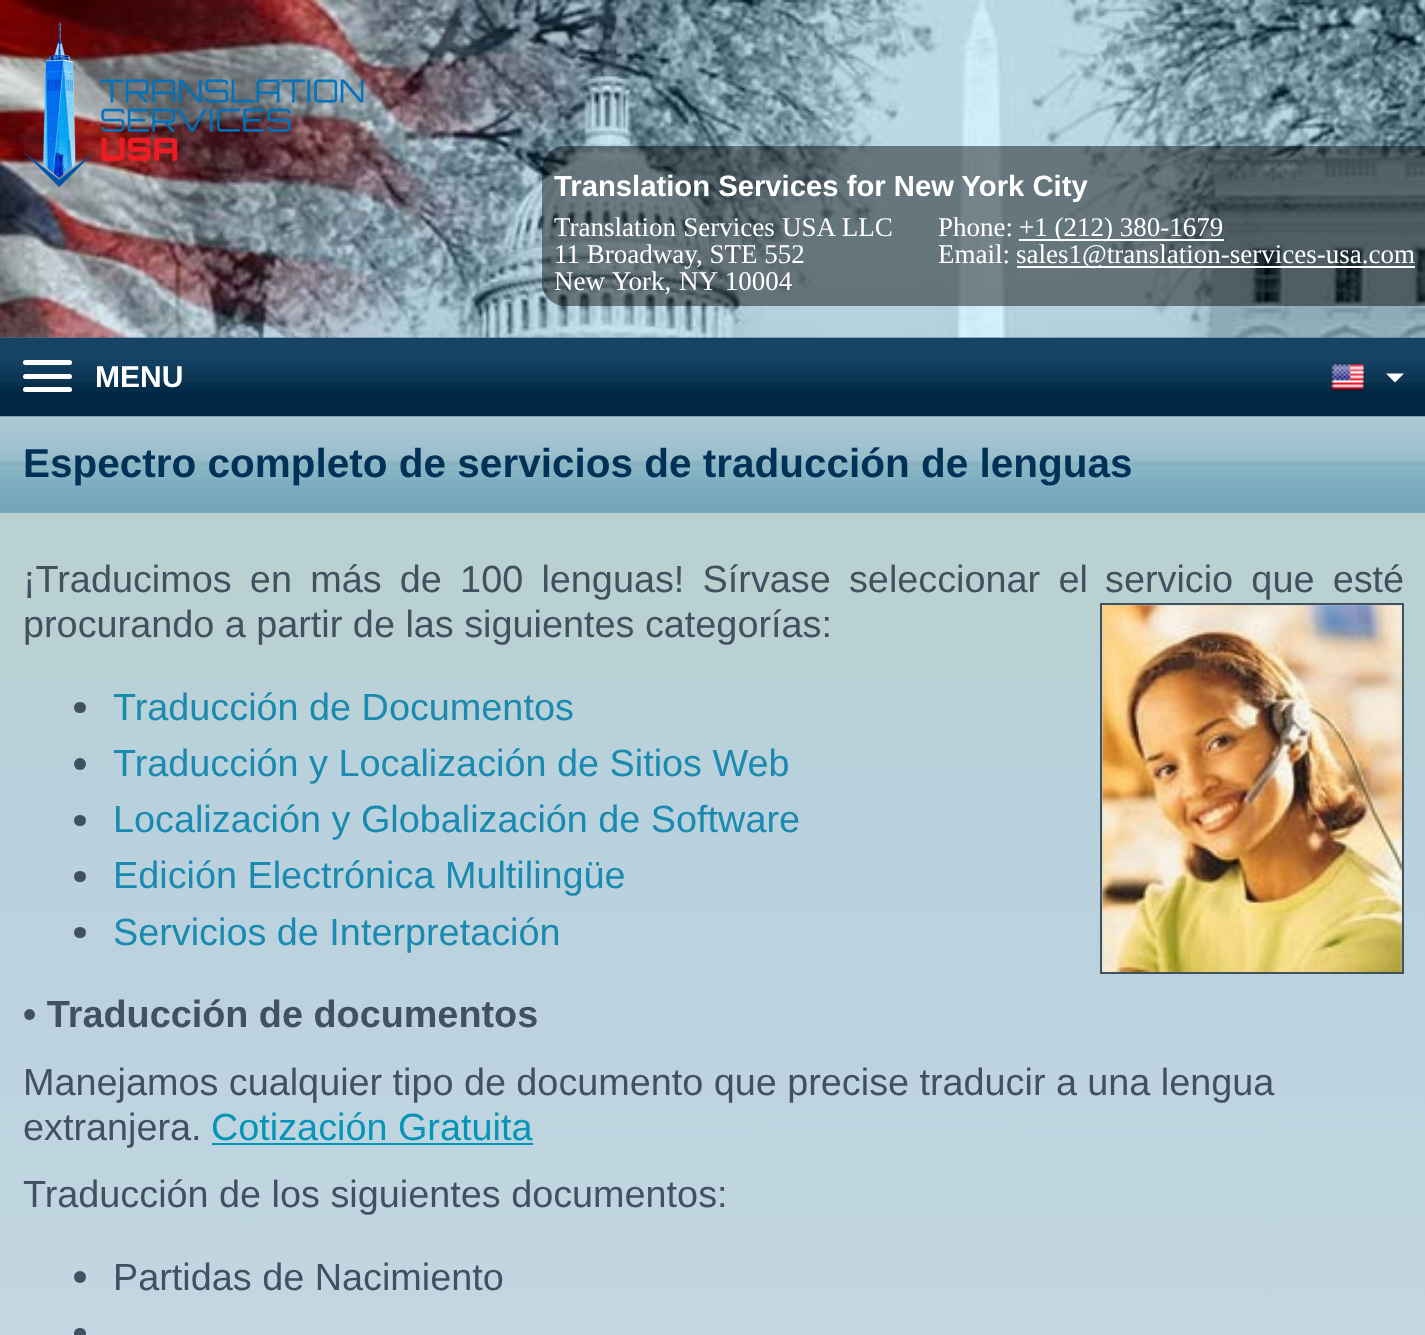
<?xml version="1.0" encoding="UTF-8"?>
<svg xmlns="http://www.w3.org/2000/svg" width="1425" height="1335">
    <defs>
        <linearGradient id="g1" gradientUnits="userSpaceOnUse" x1="713" y1="416" x2="713" y2="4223"><stop offset="0.05" stop-color="#B9D1D1"/><stop offset="0.1" stop-color="#B9D1DD"/><stop offset="0.9" stop-color="#E9F1F5"/><stop offset="0.95" stop-color="#F2F2F2"/></linearGradient>
    </defs>
    <rect width="100%" height="100%" fill="#FFFFFF"/>
    <rect x="0" y="337" width="1425" height="1" fill="#456E8E"/>
    <image x="0" y="0" width="1425" height="338" href="img_01.png"/>
    <image x="23" y="22" width="341" height="165" href="img_02.png"/>
    <path d="M 565 146 H 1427 V 306 H 565 C 552.5 306 542 295.5 542 283 V 169 C 542 156.5 552.5 146 565 146 Z" fill="#000000" fill-opacity="0.45"/>
    <text x="554" y="196" font-family="Liberation Sans" font-size="29.25" font-weight="700" fill="#FFFFFF">Translation Services for New York City</text>
    <text font-family="Liberation Serif" font-size="27" fill="#FFFFFF">
        <tspan x="554" y="236" word-spacing="0.5">Translation Services USA LLC</tspan>
        <tspan x="554" y="263">11 Broadway, STE 552</tspan>
        <tspan x="554" y="290" word-spacing="1">New York, NY 10004</tspan>
    </text>
    <text x="938" y="236" font-family="Liberation Serif" font-size="27" fill="#FFFFFF">Phone:</text>
    <rect x="1019" y="239" width="205" height="2" fill="#FFFFFF"/>
    <text x="1019" y="236" font-family="Liberation Serif" font-size="27" fill="#FFFFFF">+1 (212) 380-1679</text>
    <text x="938" y="263" font-family="Liberation Serif" font-size="27" fill="#FFFFFF">Email:</text>
    <rect x="1017" y="266" width="398" height="2" fill="#FFFFFF"/>
    <text x="1016" y="263" font-family="Liberation Serif" font-size="27" fill="#FFFFFF">sales1@translation-services-usa.com</text>
    <rect x="0" y="416" width="1425" height="919" fill="url(#g1)"/>
    <image x="0" y="416" width="1425" height="97" href="img_05.png"/>
    <image x="0" y="338" width="1425" height="79" href="img_03.png"/>
    <rect x="23" y="360" width="49" height="5" rx="2.5" fill="#FFFFFF"/>
    <rect x="23" y="374" width="49" height="5" rx="2.5" fill="#FFFFFF"/>
    <text x="95" y="387" font-family="Liberation Sans" font-size="30" font-weight="700" fill="#FFFFFF">MENU</text>
    <rect x="23" y="387" width="49" height="5" rx="2.5" fill="#FFFFFF"/>
    <image x="1329" y="362" width="37" height="30" href="img_04.png"/>
    <path d="M 1386 373.5 H 1404 L 1395 382.5 Z" fill="#FFFFFF"/>
    <text x="23" y="477" font-family="Liberation Sans" font-size="40.5" font-weight="700" fill="#003156">Espectro completo de servicios de traducción de lenguas</text>
    <text x="23" y="592" word-spacing="7.75" font-family="Liberation Sans" font-size="37.8" fill="#405260">¡Traducimos en más de 100 lenguas! Sírvase seleccionar el</text>
    <text x="1105" y="592" word-spacing="7.75" font-family="Liberation Sans" font-size="37.8" fill="#405260">servicio que esté</text>
    <text x="23" y="637" font-family="Liberation Sans" font-size="37.8" fill="#405260">procurando a partir de las siguientes categorías:</text>
    <rect x="1101" y="604" width="302" height="369" fill="none" stroke="#405260" stroke-width="2"/>
    <image x="1102" y="605" width="300" height="367" href="img_06.png"/>
    <rect x="74" y="702" width="12" height="11" rx="5.5" fill="#405260"/>
    <text x="113" y="720" font-family="Liberation Sans" font-size="37.8" fill="#1A8AB0">Traducción de Documentos</text>
    <circle cx="80" cy="764" r="6" fill="#405260"/>
    <text x="113" y="776" font-family="Liberation Sans" font-size="37.8" fill="#1A8AB0">Traducción y Localización de Sitios Web</text>
    <rect x="74" y="815" width="12" height="11" rx="5.5" fill="#405260"/>
    <text x="113" y="832" font-family="Liberation Sans" font-size="37.8" fill="#1A8AB0">Localización y Globalización de Software</text>
    <rect x="74" y="871" width="12" height="11" rx="5.5" fill="#405260"/>
    <text x="113" y="888" font-family="Liberation Sans" font-size="37.8" fill="#1A8AB0">Edición Electrónica Multilingüe</text>
    <rect x="74" y="927" width="12" height="11" rx="5.5" fill="#405260"/>
    <text x="113" y="945" font-family="Liberation Sans" font-size="37.8" fill="#1A8AB0">Servicios de Interpretación</text>
    <text x="23" y="1027" font-family="Liberation Sans" font-size="37.8" font-weight="700" fill="#405260">• Traducción de documentos</text>
    <text font-family="Liberation Sans" font-size="37.8" fill="#405260">
        <tspan x="23" y="1095" word-spacing="-0.1">Manejamos cualquier tipo de documento que precise traducir a una lengua</tspan>
        <tspan x="23" y="1140">extranjera.</tspan>
    </text>
    <text x="211" y="1140" font-family="Liberation Sans" font-size="37.8" fill="#0695B9">Cotización Gratuita</text>
    <rect x="212" y="1143" width="321" height="2" fill="#0695B9"/>
    <text x="23" y="1207" font-family="Liberation Sans" font-size="37.8" fill="#405260">Traducción de los siguientes documentos:</text>
    <circle cx="80" cy="1277" r="6" fill="#405260"/>
    <text x="113" y="1290" font-family="Liberation Sans" font-size="37.8" fill="#405260">Partidas de Nacimiento</text>
    <rect x="74" y="1328" width="12" height="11" rx="5.5" fill="#405260"/>
</svg>
